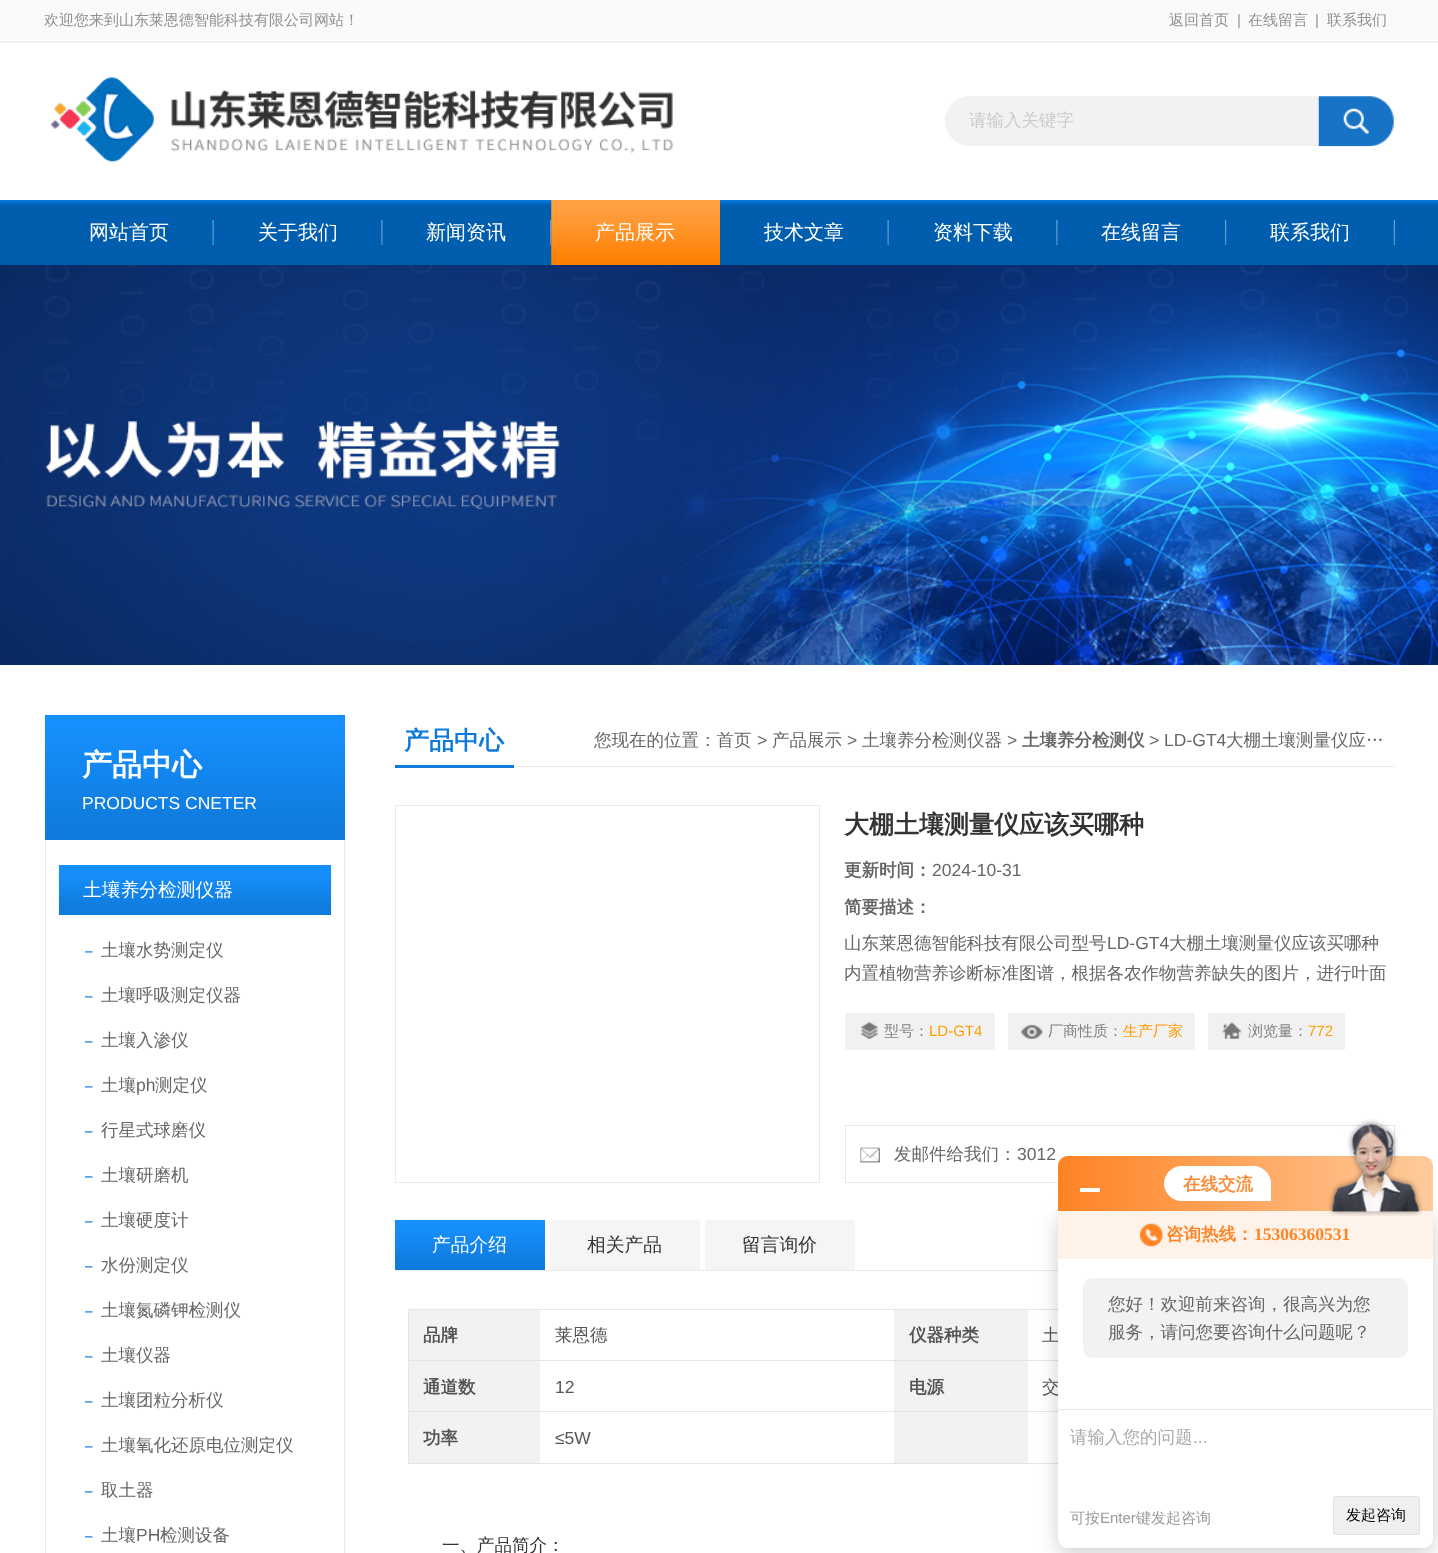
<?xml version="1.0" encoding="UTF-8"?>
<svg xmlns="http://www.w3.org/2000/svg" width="1438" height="1553">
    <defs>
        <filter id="blur1" x="-50%" y="-200%" width="200%" height="500%"><feGaussianBlur stdDeviation="10"/></filter>
        <linearGradient id="g1" gradientUnits="userSpaceOnUse" x1="1058" y1="1184" x2="1433" y2="1184"><stop offset="0" stop-color="#FF8324"/><stop offset="1" stop-color="#FECB9C"/></linearGradient>
    </defs>
    <rect width="100%" height="100%" fill="#FFFFFF"/>
    <image x="0" y="0" width="1438" height="43" href="img_01.png"/>
    <text x="44" y="25" font-family="WenQuanYi Zen Hei" font-size="15" font-weight="500" fill="#929091">欢迎您来到山东莱恩德智能科技有限公司网站！</text>
    <text x="1169" y="25" font-family="WenQuanYi Zen Hei" font-size="15" font-weight="500" fill="#929091">返回首页</text>
    <text x="1237" y="25" font-family="Liberation Sans" font-size="15" fill="#929091">|</text>
    <text x="1248" y="25" font-family="WenQuanYi Zen Hei" font-size="15" font-weight="500" fill="#929091">在线留言</text>
    <text x="1315" y="25" font-family="Liberation Sans" font-size="15" fill="#929091">|</text>
    <text x="1327" y="25" font-family="WenQuanYi Zen Hei" font-size="15" font-weight="500" fill="#929091">联系我们</text>
    <image x="51" y="77" width="622" height="85" href="img_02.png"/>
    <path d="M 970 96 H 1319 V 146 H 970 C 956 146 945 135 945 121 C 945 107 956 96 970 96 Z" fill="#F2F2F2"/>
    <text x="969" y="126" font-family="WenQuanYi Zen Hei" font-size="17.5" font-weight="500" fill="#CCCCCC">请输入关键字</text>
    <image x="1318" y="96" width="76" height="51" href="img_03.png"/>
    <image x="0" y="200" width="1438" height="65" href="img_04.png"/>
    <image x="212" y="220" width="2" height="25" href="img_05.png"/>
    <text x="89" y="239" font-family="WenQuanYi Zen Hei" font-size="20" font-weight="500" fill="#FFFFFF">网站首页</text>
    <image x="381" y="220" width="2" height="25" href="img_06.png"/>
    <text x="258" y="239" font-family="WenQuanYi Zen Hei" font-size="20" font-weight="500" fill="#FFFFFF">关于我们</text>
    <image x="550" y="220" width="2" height="25" href="img_07.png"/>
    <text x="426" y="239" font-family="WenQuanYi Zen Hei" font-size="20" font-weight="500" fill="#FFFFFF">新闻资讯</text>
    <image x="551" y="200" width="169" height="65" href="img_08.png"/>
    <text x="595" y="239" font-family="WenQuanYi Zen Hei" font-size="20" font-weight="500" fill="#FFFFFF">产品展示</text>
    <image x="887" y="220" width="2" height="25" href="img_05.png"/>
    <text x="764" y="239" font-family="WenQuanYi Zen Hei" font-size="20" font-weight="500" fill="#FFFFFF">技术文章</text>
    <image x="1056" y="220" width="2" height="25" href="img_06.png"/>
    <text x="933" y="239" font-family="WenQuanYi Zen Hei" font-size="20" font-weight="500" fill="#FFFFFF">资料下载</text>
    <image x="1225" y="220" width="2" height="25" href="img_07.png"/>
    <text x="1101" y="239" font-family="WenQuanYi Zen Hei" font-size="20" font-weight="500" fill="#FFFFFF">在线留言</text>
    <image x="1393" y="220" width="2" height="25" href="img_09.png"/>
    <text x="1270" y="239" font-family="WenQuanYi Zen Hei" font-size="20" font-weight="500" fill="#FFFFFF">联系我们</text>
    <image x="0" y="265" width="1438" height="400" href="img_10.png"/>
    <image x="45" y="715" width="300" height="125" href="img_11.png"/>
    <text x="82" y="775" font-family="WenQuanYi Zen Hei" font-size="30" font-weight="700" fill="#FFFFFF">产品中心</text>
    <text x="82" y="809" font-family="Liberation Sans" font-size="17.5" fill="#FFFFFF">PRODUCTS CNETER</text>
    <rect x="344" y="840" width="1" height="713" fill="#EAEAEA"/>
    <rect x="45" y="840" width="1" height="713" fill="#EAEAEA"/>
    <image x="58" y="865" width="274" height="50" href="img_12.png"/>
    <text x="83" y="896" font-family="WenQuanYi Zen Hei" font-size="18.75" font-weight="500" fill="#FFFFFF">土壤养分检测仪器</text>
    <image x="85" y="951" width="8" height="2" href="img_13.png"/>
    <text x="101" y="956" font-family="WenQuanYi Zen Hei" font-size="17.5" font-weight="500" fill="#666666">土壤水势测定仪</text>
    <image x="85" y="996" width="8" height="2" href="img_13.png"/>
    <text x="101" y="1001" font-family="WenQuanYi Zen Hei" font-size="17.5" font-weight="500" fill="#666666">土壤呼吸测定仪器</text>
    <image x="85" y="1041" width="8" height="2" href="img_13.png"/>
    <text x="101" y="1046" font-family="WenQuanYi Zen Hei" font-size="17.5" font-weight="500" fill="#666666">土壤入渗仪</text>
    <image x="85" y="1086" width="8" height="2" href="img_13.png"/>
    <text x="101" y="1091" font-family="WenQuanYi Zen Hei" font-size="17.5" font-weight="500" fill="#666666">土壤</text>
    <text x="136" y="1091" font-family="Liberation Sans" font-size="17.5" fill="#666666">ph</text>
    <text x="155" y="1091" font-family="WenQuanYi Zen Hei" font-size="17.5" font-weight="500" fill="#666666">测定仪</text>
    <image x="85" y="1131" width="8" height="2" href="img_13.png"/>
    <text x="101" y="1136" font-family="WenQuanYi Zen Hei" font-size="17.5" font-weight="500" fill="#666666">行星式球磨仪</text>
    <image x="85" y="1176" width="8" height="2" href="img_14.png"/>
    <text x="101" y="1181" font-family="WenQuanYi Zen Hei" font-size="17.5" font-weight="500" fill="#666666">土壤研磨机</text>
    <image x="85" y="1221" width="8" height="2" href="img_13.png"/>
    <text x="101" y="1226" font-family="WenQuanYi Zen Hei" font-size="17.5" font-weight="500" fill="#666666">土壤硬度计</text>
    <image x="85" y="1266" width="8" height="2" href="img_13.png"/>
    <text x="101" y="1271" font-family="WenQuanYi Zen Hei" font-size="17.5" font-weight="500" fill="#666666">水份测定仪</text>
    <image x="85" y="1311" width="8" height="2" href="img_13.png"/>
    <text x="101" y="1316" font-family="WenQuanYi Zen Hei" font-size="17.5" font-weight="500" fill="#666666">土壤氮磷钾检测仪</text>
    <image x="85" y="1356" width="8" height="2" href="img_13.png"/>
    <text x="101" y="1361" font-family="WenQuanYi Zen Hei" font-size="17.5" font-weight="500" fill="#666666">土壤仪器</text>
    <image x="85" y="1401" width="8" height="2" href="img_13.png"/>
    <text x="101" y="1406" font-family="WenQuanYi Zen Hei" font-size="17.5" font-weight="500" fill="#666666">土壤团粒分析仪</text>
    <image x="85" y="1446" width="8" height="2" href="img_13.png"/>
    <text x="101" y="1451" font-family="WenQuanYi Zen Hei" font-size="17.5" font-weight="500" fill="#666666">土壤氧化还原电位测定仪</text>
    <image x="85" y="1491" width="8" height="2" href="img_13.png"/>
    <text x="101" y="1496" font-family="WenQuanYi Zen Hei" font-size="17.5" font-weight="500" fill="#666666">取土器</text>
    <image x="85" y="1536" width="8" height="2" href="img_13.png"/>
    <text x="101" y="1541" font-family="WenQuanYi Zen Hei" font-size="17.5" font-weight="500" fill="#666666">土壤</text>
    <text x="136" y="1541" font-family="Liberation Sans" font-size="17.5" fill="#666666">PH</text>
    <text x="160" y="1541" font-family="WenQuanYi Zen Hei" font-size="17.5" font-weight="500" fill="#666666">检测设备</text>
    <rect x="514" y="766" width="881" height="1" fill="#EAEAEA"/>
    <rect x="395" y="765" width="119" height="3" fill="#0F7ADB"/>
    <text x="404" y="749" font-family="WenQuanYi Zen Hei" font-size="25" font-weight="700" fill="#0F7ADB">产品中心</text>
    <text x="594" y="746" font-family="WenQuanYi Zen Hei" font-size="17.5" font-weight="500" fill="#666666">您现在的位置：首页</text>
    <text x="757" y="746" font-family="Liberation Sans" font-size="17.5" fill="#666666">&gt;</text>
    <text x="772" y="746" font-family="WenQuanYi Zen Hei" font-size="17.5" font-weight="500" fill="#666666">产品展示</text>
    <text x="847" y="746" font-family="Liberation Sans" font-size="17.5" fill="#666666">&gt;</text>
    <text x="862" y="746" font-family="WenQuanYi Zen Hei" font-size="17.5" font-weight="500" fill="#666666">土壤养分检测仪器</text>
    <text x="1007" y="746" font-family="Liberation Sans" font-size="17.5" fill="#666666">&gt;</text>
    <text x="1022" y="746" font-family="WenQuanYi Zen Hei" font-size="17.5" font-weight="700" fill="#666666">土壤养分检测仪</text>
    <text x="1149" y="746" font-family="Liberation Sans" font-size="17.5" fill="#666666">&gt; LD-GT4</text>
    <text x="1226" y="746" font-family="WenQuanYi Zen Hei" font-size="17.5" font-weight="500" fill="#666666">大棚土壤测量仪应…</text>
    <rect x="395.5" y="805.5" width="424" height="377" fill="none" stroke="#EAEAEA"/>
    <text x="844" y="833" font-family="WenQuanYi Zen Hei" font-size="25" font-weight="700" fill="#333333">大棚土壤测量仪应该买哪种</text>
    <text x="844" y="876" font-family="WenQuanYi Zen Hei" font-size="17.5" font-weight="700" fill="#666666">更新时间：</text>
    <text x="932" y="876" font-family="Liberation Sans" font-size="17.5" fill="#666666">2024-10-31</text>
    <text x="844" y="913" font-family="WenQuanYi Zen Hei" font-size="17.5" font-weight="700" fill="#666666">简要描述：</text>
    <text x="844" y="949" font-family="WenQuanYi Zen Hei" font-size="17.5" font-weight="500" fill="#666666">山东莱恩德智能科技有限公司型号</text>
    <text x="1107" y="949" font-family="Liberation Sans" font-size="17.5" fill="#666666">LD-GT4</text>
    <text x="1169" y="949" font-family="WenQuanYi Zen Hei" font-size="17.5" font-weight="500" fill="#666666">大棚土壤测量仪应该买哪种</text>
    <text x="844" y="979" font-family="WenQuanYi Zen Hei" font-size="17.5" font-weight="500" fill="#666666">内置植物营养诊断标准图谱，根据各农作物营养缺失的图片，进行叶面</text>
    <rect x="845" y="1013" width="150" height="37" fill="#F1F1F1"/>
    <image x="861" y="1022" width="17" height="17" href="img_15.png"/>
    <text x="884" y="1036" font-family="WenQuanYi Zen Hei" font-size="15" font-weight="500" fill="#828282">型号：</text>
    <text x="929" y="1036" font-family="Liberation Sans" font-size="15" fill="#FF9C00">LD-GT4</text>
    <rect x="1008" y="1013" width="187" height="37" fill="#F1F1F1"/>
    <image x="1021" y="1024" width="22" height="15" href="img_16.png"/>
    <text x="1048" y="1036" font-family="WenQuanYi Zen Hei" font-size="15" font-weight="500" fill="#828282">厂商性质：</text>
    <text x="1123" y="1036" font-family="WenQuanYi Zen Hei" font-size="15" font-weight="500" fill="#FF9C00">生产厂家</text>
    <rect x="1208" y="1013" width="137" height="37" fill="#F1F1F1"/>
    <image x="1222" y="1022" width="20" height="17" href="img_17.png"/>
    <text x="1248" y="1036" font-family="WenQuanYi Zen Hei" font-size="15" font-weight="500" fill="#828282">浏览量：</text>
    <text x="1308" y="1036" font-family="Liberation Sans" font-size="15" fill="#FF9C00">772</text>
    <rect x="845.5" y="1125.5" width="549" height="57" fill="none" stroke="#E6E6E6"/>
    <image x="860" y="1147" width="20" height="16" href="img_18.png"/>
    <text x="894" y="1160" font-family="WenQuanYi Zen Hei" font-size="17.5" font-weight="500" fill="#666666">发邮件给我们：</text>
    <text x="1017" y="1160" font-family="Liberation Sans" font-size="17.5" fill="#666666">3012</text>
    <rect x="395" y="1270" width="663" height="1" fill="#EAEAEA"/>
    <image x="395" y="1220" width="150" height="50" href="img_19.png"/>
    <text x="432" y="1251" font-family="WenQuanYi Zen Hei" font-size="18.75" font-weight="500" fill="#FFFFFF">产品介绍</text>
    <rect x="550" y="1220" width="150" height="50" fill="#F5F5F5"/>
    <text x="587" y="1251" font-family="WenQuanYi Zen Hei" font-size="18.75" font-weight="500" fill="#333333">相关产品</text>
    <rect x="705" y="1220" width="150" height="50" fill="#F5F5F5"/>
    <text x="742" y="1251" font-family="WenQuanYi Zen Hei" font-size="18.75" font-weight="500" fill="#333333">留言询价</text>
    <rect x="408" y="1309" width="650" height="1" fill="#E6E5E5"/>
    <rect x="408" y="1309" width="1" height="155" fill="#E6E5E5"/>
    <rect x="409" y="1310" width="131" height="50" fill="#F2F2F2"/>
    <text x="423" y="1341" font-family="WenQuanYi Zen Hei" font-size="17.5" font-weight="700" fill="#555555">品牌</text>
    <text x="555" y="1341" font-family="WenQuanYi Zen Hei" font-size="17.5" font-weight="500" fill="#555555">莱恩德</text>
    <rect x="894" y="1310" width="134" height="50" fill="#F2F2F2"/>
    <text x="909" y="1341" font-family="WenQuanYi Zen Hei" font-size="17.5" font-weight="700" fill="#555555">仪器种类</text>
    <rect x="408" y="1360" width="650" height="1" fill="#E6E5E5"/>
    <text x="1042" y="1341" font-family="WenQuanYi Zen Hei" font-size="17.5" font-weight="500" fill="#555555">土</text>
    <rect x="409" y="1361" width="131" height="102" fill="#F2F2F2"/>
    <text x="423" y="1393" font-family="WenQuanYi Zen Hei" font-size="17.5" font-weight="700" fill="#555555">通道数</text>
    <text x="555" y="1393" font-family="Liberation Sans" font-size="17.5" fill="#555555">12</text>
    <rect x="894" y="1361" width="134" height="102" fill="#F2F2F2"/>
    <text x="909" y="1393" font-family="WenQuanYi Zen Hei" font-size="17.5" font-weight="700" fill="#555555">电源</text>
    <rect x="408" y="1411" width="650" height="1" fill="#E6E5E5"/>
    <text x="1042" y="1393" font-family="WenQuanYi Zen Hei" font-size="17.5" font-weight="500" fill="#555555">交</text>
    <text x="423" y="1444" font-family="WenQuanYi Zen Hei" font-size="17.5" font-weight="700" fill="#555555">功率</text>
    <text x="555" y="1444" font-family="Liberation Sans" font-size="17.5" fill="#555555">≤5W</text>
    <rect x="408" y="1463" width="650" height="1" fill="#E6E5E5"/>
    <text x="442" y="1551" font-family="WenQuanYi Zen Hei" font-size="17.5" font-weight="500" fill="#333333">一、产品简介：</text>
    <rect x="1058" y="1216" width="375" height="337" rx="10" fill="#000000" fill-opacity="0.2" filter="url(#blur1)"/>
    <path d="M 1068 1156 H 1423 C 1428.5 1156 1433 1160.5 1433 1166 V 1211 H 1058 V 1166 C 1058 1160.5 1062.5 1156 1068 1156 Z" fill="url(#g1)"/>
    <rect x="1080" y="1188" width="20" height="4" fill="#FFFFFF"/>
    <path d="M 1181.5 1166 H 1253.5 C 1263 1166 1271 1174 1271 1183.5 V 1201 H 1181.5 C 1172 1201 1164 1193 1164 1183.5 C 1164 1174 1172 1166 1181.5 1166 Z" fill="#FFFFFF"/>
    <text x="1183" y="1190" font-family="WenQuanYi Zen Hei" font-size="17.5" font-weight="700" fill="#FB8B36">在线交流</text>
    <path d="M 1058 1211 H 1433 V 1538 C 1433 1543.5 1428.5 1548 1423 1548 H 1068 C 1062.5 1548 1058 1543.5 1058 1538 Z" fill="#FFFFFF"/>
    <rect x="1058" y="1211" width="375" height="48" fill="#FFF3E9"/>
    <image x="1328" y="1119" width="95" height="97" href="img_20.png"/>
    <image x="1140" y="1223" width="23" height="24" href="img_21.png"/>
    <text x="1166" y="1240" font-family="WenQuanYi Zen Hei" font-size="17.5" font-weight="700" fill="#FF8426">咨询热线：</text>
    <text x="1254" y="1240" font-family="Liberation Serif" font-size="17.5" font-weight="700" fill="#FF8426">15306360531</text>
    <rect x="1083" y="1278" width="325" height="80" rx="10" fill="#F2F2F2"/>
    <text font-family="WenQuanYi Zen Hei" font-size="17.5" font-weight="500" fill="#666666">
        <tspan x="1108" y="1310">您好！欢迎前来咨询，很高兴为您</tspan>
        <tspan x="1108" y="1338">服务，请问您要咨询什么问题呢？</tspan>
    </text>
    <rect x="1058" y="1409" width="375" height="1" fill="#EAEAEA"/>
    <text x="1070" y="1443" font-family="WenQuanYi Zen Hei" font-size="17.5" font-weight="500" fill="#AAAAAA">请输入您的问题</text>
    <text x="1193" y="1443" font-family="Liberation Sans" font-size="17.5" fill="#AAAAAA">...</text>
    <text x="1070" y="1523" font-family="WenQuanYi Zen Hei" font-size="15" font-weight="500" fill="#999999">可按</text>
    <text x="1100" y="1523" font-family="Liberation Sans" font-size="15" fill="#999999">Enter</text>
    <text x="1136" y="1523" font-family="WenQuanYi Zen Hei" font-size="15" font-weight="500" fill="#999999">键发起咨询</text>
    <rect x="1333.5" y="1496.5" width="86" height="38" rx="2" fill="#F0EFED" stroke="#E2E2E2"/>
    <text x="1346" y="1520" font-family="WenQuanYi Zen Hei" font-size="15" font-weight="500" fill="#000000">发起咨询</text>
</svg>
